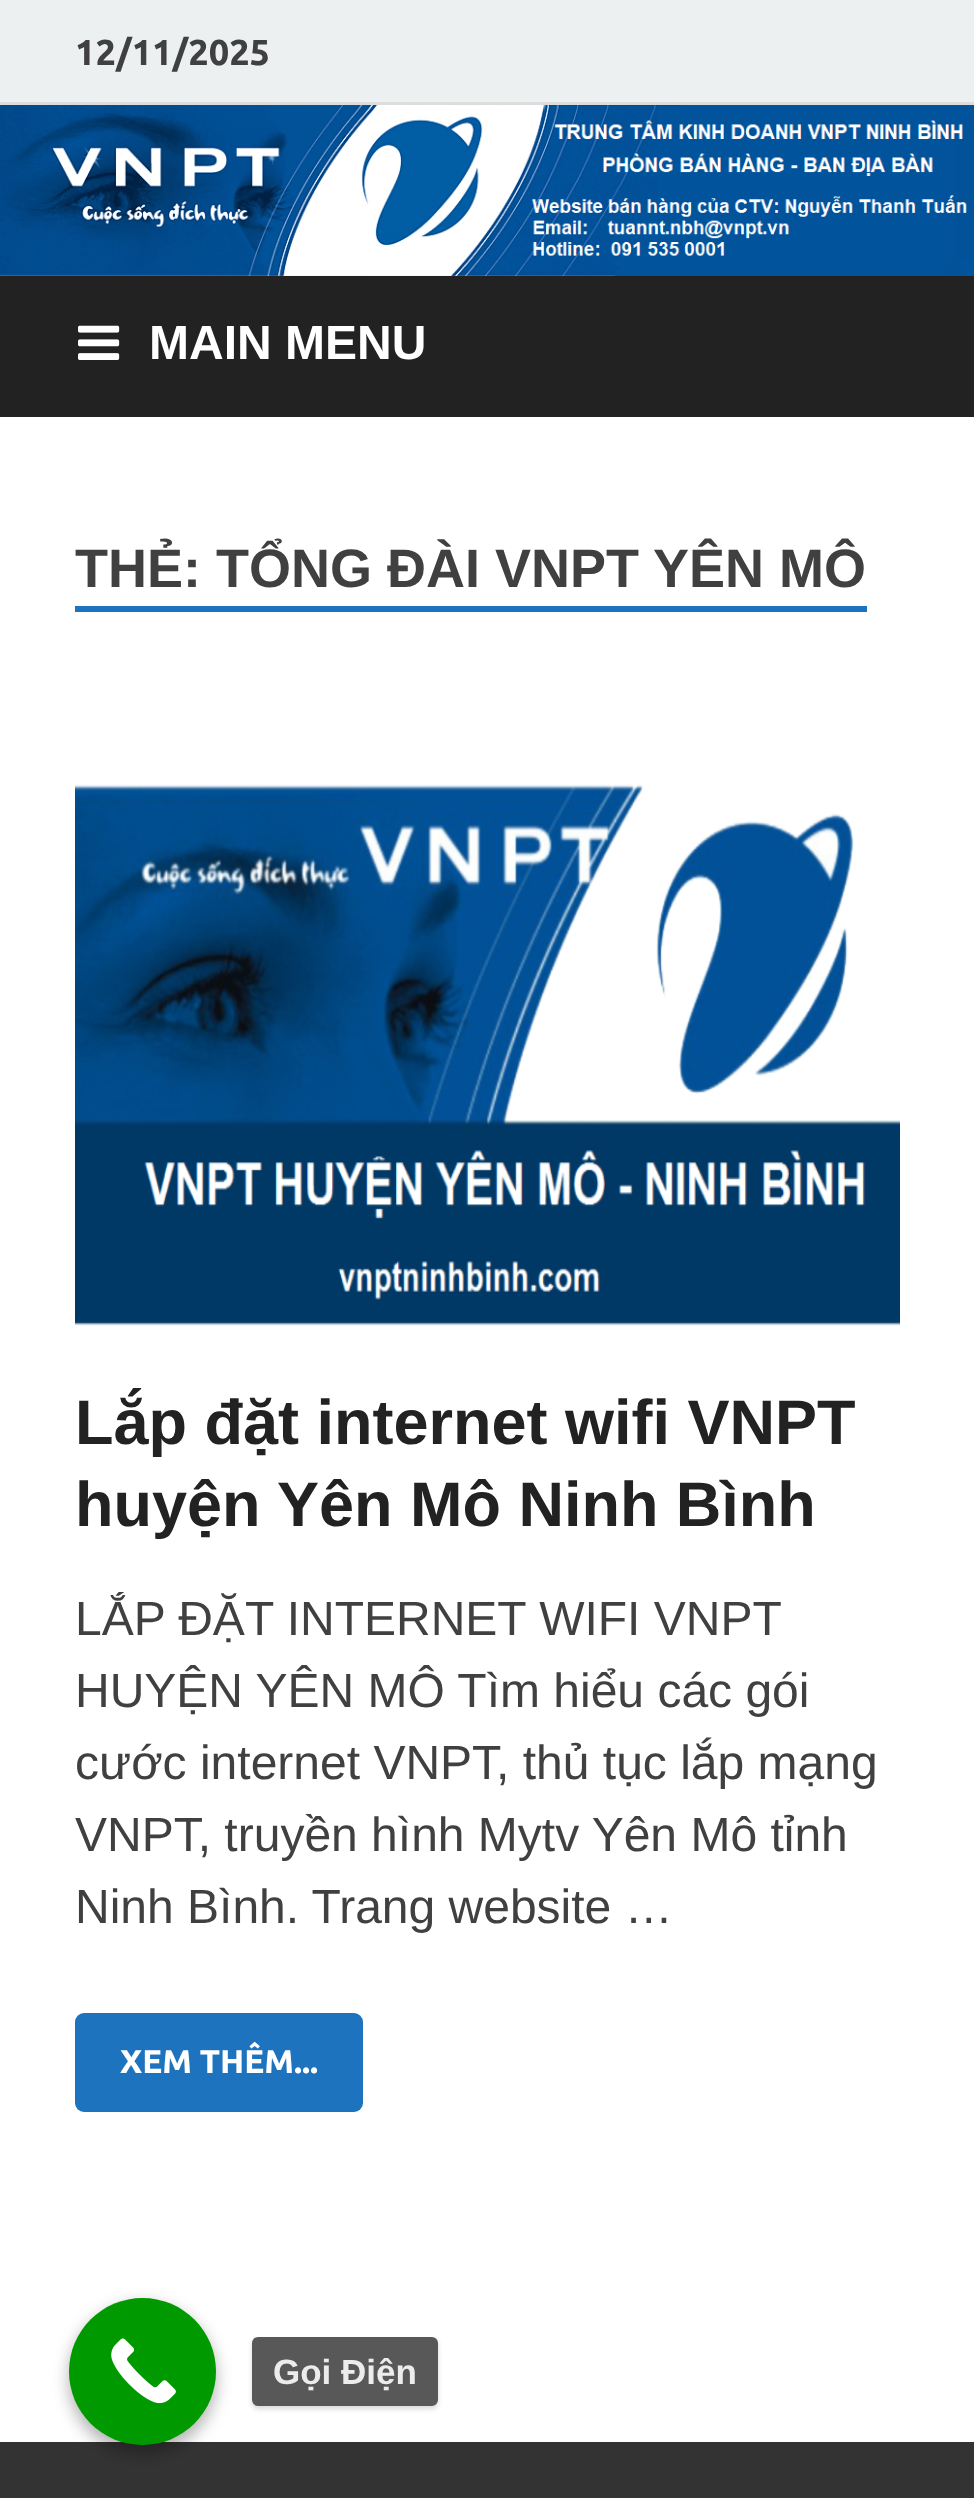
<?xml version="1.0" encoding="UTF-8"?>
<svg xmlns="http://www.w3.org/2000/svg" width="974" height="2498">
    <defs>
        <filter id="blur1" x="-50%" y="-200%" width="200%" height="500%"><feGaussianBlur stdDeviation="8"/></filter>
        <clipPath id="clip1"><path d="M 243 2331 H 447 V 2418 H 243 Z M 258 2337 H 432 C 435.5 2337 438 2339.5 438 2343 V 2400 C 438 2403.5 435.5 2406 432 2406 H 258 C 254.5 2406 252 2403.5 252 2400 V 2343 C 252 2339.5 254.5 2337 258 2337 Z" clip-rule="evenodd"/></clipPath>
        <filter id="blur2" x="-50%" y="-200%" width="200%" height="500%"><feGaussianBlur stdDeviation="2.5"/></filter>
    </defs>
    <rect width="100%" height="100%" fill="#FFFFFF"/>
    <rect x="0" y="0" width="974" height="102" fill="#ECF0F1"/>
    <rect x="0" y="102" width="974" height="3" fill="#DDDDDD"/>
    <text x="75" y="65" font-family="Ubuntu" font-size="36" font-weight="700" fill="#404040">12/11/2025</text>
    <image x="0" y="105" width="974" height="171" href="img_01.png"/>
    <rect x="0" y="276" width="974" height="141" fill="#222222"/>
    <image x="78" y="325" width="42" height="35" href="img_02.png"/>
    <text x="149" y="359" font-family="Liberation Sans" font-size="48" font-weight="700" fill="#FFFFFF">MAIN MENU</text>
    <text x="75" y="587" font-family="Liberation Sans" font-size="54" font-weight="700" fill="#404040">THẺ: TỔNG ĐÀI VNPT YÊN MÔ</text>
    <rect x="75" y="606" width="792" height="6" fill="#1E73BE"/>
    <image x="75" y="784" width="825" height="542" href="img_03.png"/>
    <text font-family="Liberation Sans" font-size="63" font-weight="700" fill="#222222">
        <tspan x="75" y="1444">Lắp đặt internet wifi VNPT</tspan>
        <tspan x="75" y="1526">huyện Yên Mô Ninh Bình</tspan>
    </text>
    <text font-family="Liberation Sans" font-size="48" fill="#404040">
        <tspan x="75" y="1635">LẮP ĐẶT INTERNET WIFI VNPT</tspan>
        <tspan x="75" y="1707">HUYỆN YÊN MÔ Tìm hiểu các gói</tspan>
        <tspan x="75" y="1779">cước internet VNPT, thủ tục lắp mạng</tspan>
        <tspan x="75" y="1851">VNPT, truyền hình Mytv Yên Mô tỉnh</tspan>
        <tspan x="75" y="1923">Ninh Bình. Trang website …</tspan>
    </text>
    <rect x="75" y="2013" width="288" height="99" rx="9" fill="#1E73BE"/>
    <text x="120" y="2073" font-family="Ubuntu" font-size="33" font-weight="700" fill="#FFFFFF">XEM THÊM...</text>
    <rect x="0" y="2442" width="974" height="56" fill="#333333"/>
    <rect x="69" y="2304" width="147" height="150" rx="73.5" fill="#000000" fill-opacity="0.3" filter="url(#blur1)"/>
    <circle cx="142.5" cy="2371.5" r="73.5" fill="#009900"/>
    <image x="111" y="2338" width="65" height="66" href="img_04.png"/>
    <g clip-path="url(#clip1)">
        <rect x="252" y="2340" width="186" height="69" rx="6" fill="#000000" fill-opacity="0.15" filter="url(#blur2)"/>
    </g>
    <rect x="252" y="2337" width="186" height="69" rx="6" fill="#464646" fill-opacity="0.9"/>
    <text x="273" y="2384" font-family="Liberation Sans" font-size="35" font-weight="700" fill="#ECECEC">Gọi Điện</text>
</svg>
